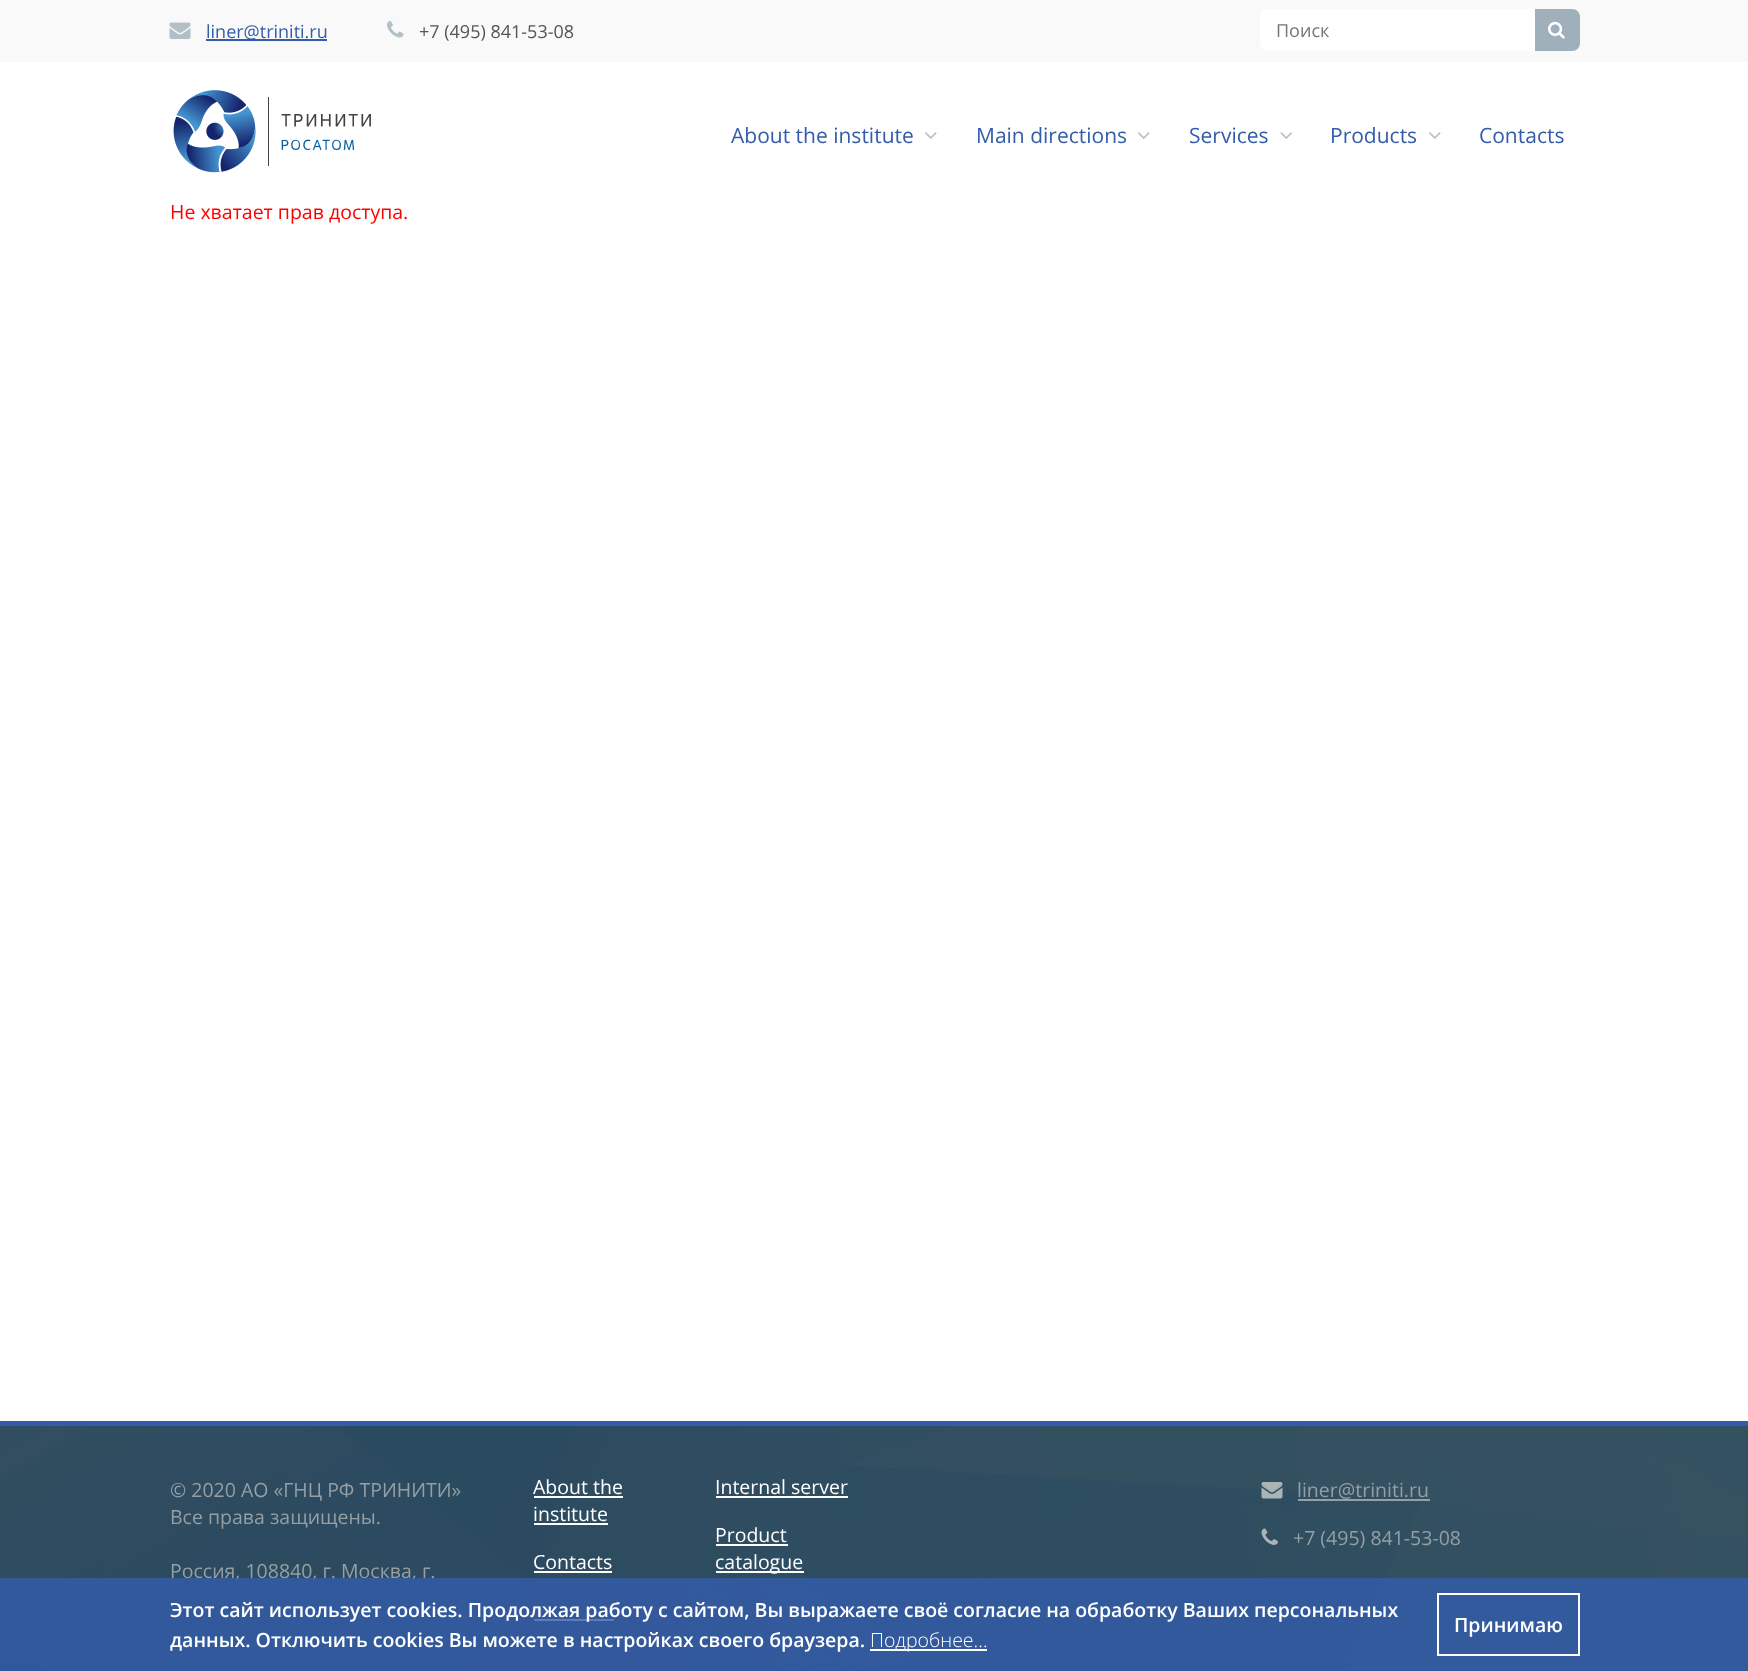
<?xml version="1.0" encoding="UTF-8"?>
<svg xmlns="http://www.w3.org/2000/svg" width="1748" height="1671">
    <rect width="100%" height="100%" fill="#FFFFFF"/>
    <rect x="0" y="0" width="1748" height="62" fill="#F9F9F9"/>
    <image x="169" y="22" width="22" height="17" href="img_01.png"/>
    <rect x="206" y="39" width="121" height="2" fill="#335CAB"/>
    <text x="206" y="38" font-family="Open Sans" font-size="18" fill="#335CAB">liner@triniti.ru</text>
    <image x="387" y="21" width="17" height="17" href="img_02.png"/>
    <text x="419" y="38" font-family="Open Sans" font-size="18" fill="#555555">+7 (495) 841-53-08</text>
    <rect x="1260" y="9" width="320" height="42" rx="8" fill="#FFFFFF"/>
    <text x="1276" y="37" font-family="Open Sans" font-size="18" fill="#757575">Поиск</text>
    <path d="M 1535 9 H 1572 C 1576.5 9 1580 12.5 1580 17 V 43 C 1580 47.5 1576.5 51 1572 51 H 1535 Z" fill="#A0B0BA"/>
    <image x="1548" y="21" width="17" height="18" href="img_03.png"/>
    <image x="173" y="90" width="198" height="83" href="img_04.png"/>
    <text x="731" y="143" font-family="Open Sans" font-size="21" fill="#335CAB">About the institute</text>
    <image x="925" y="132" width="12" height="7" href="img_05.png"/>
    <text x="976" y="143" font-family="Open Sans" font-size="21" fill="#335CAB">Main directions</text>
    <image x="1138" y="132" width="12" height="7" href="img_05.png"/>
    <text x="1189" y="143" font-family="Open Sans" font-size="21" fill="#335CAB">Services</text>
    <image x="1280" y="132" width="12" height="7" href="img_06.png"/>
    <text x="1330" y="143" font-family="Open Sans" font-size="21" fill="#335CAB">Products</text>
    <image x="1429" y="132" width="12" height="7" href="img_05.png"/>
    <text x="1479" y="143" font-family="Open Sans" font-size="21" fill="#335CAB">Contacts</text>
    <text x="170" y="219" font-family="Open Sans" font-size="19.5" fill="#FF0000">Не хватает прав доступа.</text>
    <rect x="0" y="1426" width="1748" height="245" fill="#253C46"/>
    <image x="0" y="1426" width="1748" height="245" href="img_07.png"/>
    <text x="170" y="1578" font-family="Open Sans" font-size="19.5" fill="#959FA4">Россия, 108840, г. Москва, г.</text>
    <rect x="534" y="1619" width="80" height="2" fill="#FFFFFF"/>
    <rect x="0" y="1578" width="1748" height="93" fill="#335CAB" fill-opacity="0.8"/>
    <text font-family="Open Sans" font-size="19.5" font-weight="600" fill="#FFFFFF">
        <tspan x="170" y="1617">Этот сайт использует cookies. Продолжая работу с сайтом, Вы выражаете своё согласие на обработку Ваших персональных</tspan>
        <tspan x="170" y="1647">данных. Отключить cookies Вы можете в настройках своего браузера.</tspan>
    </text>
    <rect x="870" y="1649" width="117" height="2" fill="#FFFFFF"/>
    <text x="870" y="1647" font-family="Open Sans" font-size="19.5" font-weight="300" fill="#FFFFFF">Подробнее...</text>
    <rect x="1438" y="1594" width="141" height="61" fill="none" stroke="#FFFFFF" stroke-width="2"/>
    <text x="1454" y="1632" font-family="Open Sans" font-size="19.5" font-weight="600" fill="#FFFFFF">Принимаю</text>
    <rect x="0" y="1421" width="1748" height="5" fill="#335CAB"/>
    <text font-family="Open Sans" font-size="19.5" fill="#959FA4">
        <tspan x="170" y="1497">© 2020 АО «ГНЦ РФ ТРИНИТИ»</tspan>
        <tspan x="170" y="1524">Все права защищены.</tspan>
    </text>
    <text x="533" y="1494" font-family="Open Sans" font-size="19.5" fill="#FFFFFF">About the</text>
    <rect x="534" y="1496" width="89" height="2" fill="#FFFFFF"/>
    <text x="533" y="1521" font-family="Open Sans" font-size="19.5" fill="#FFFFFF">institute</text>
    <rect x="534" y="1523" width="74" height="2" fill="#FFFFFF"/>
    <text x="533" y="1569" font-family="Open Sans" font-size="19.5" fill="#FFFFFF">Contacts</text>
    <rect x="534" y="1571" width="78" height="2" fill="#FFFFFF"/>
    <text x="715" y="1494" font-family="Open Sans" font-size="19.5" fill="#FFFFFF">Internal server</text>
    <rect x="716" y="1496" width="132" height="2" fill="#FFFFFF"/>
    <text x="715" y="1542" font-family="Open Sans" font-size="19.5" fill="#FFFFFF">Product</text>
    <rect x="716" y="1544" width="72" height="2" fill="#FFFFFF"/>
    <rect x="716" y="1571" width="88" height="2" fill="#FFFFFF"/>
    <text x="715" y="1569" font-family="Open Sans" font-size="19.5" fill="#FFFFFF">catalogue</text>
    <image x="1261" y="1482" width="22" height="17" href="img_08.png"/>
    <text x="1297" y="1497" font-family="Open Sans" font-size="19.5" fill="#959FA4">liner@triniti.ru</text>
    <rect x="1298" y="1499" width="132" height="2" fill="#959FA4"/>
    <image x="1261" y="1528" width="17" height="17" href="img_09.png"/>
    <text x="1293" y="1545" font-family="Open Sans" font-size="19.5" fill="#959FA4">+7 (495) 841-53-08</text>
</svg>
